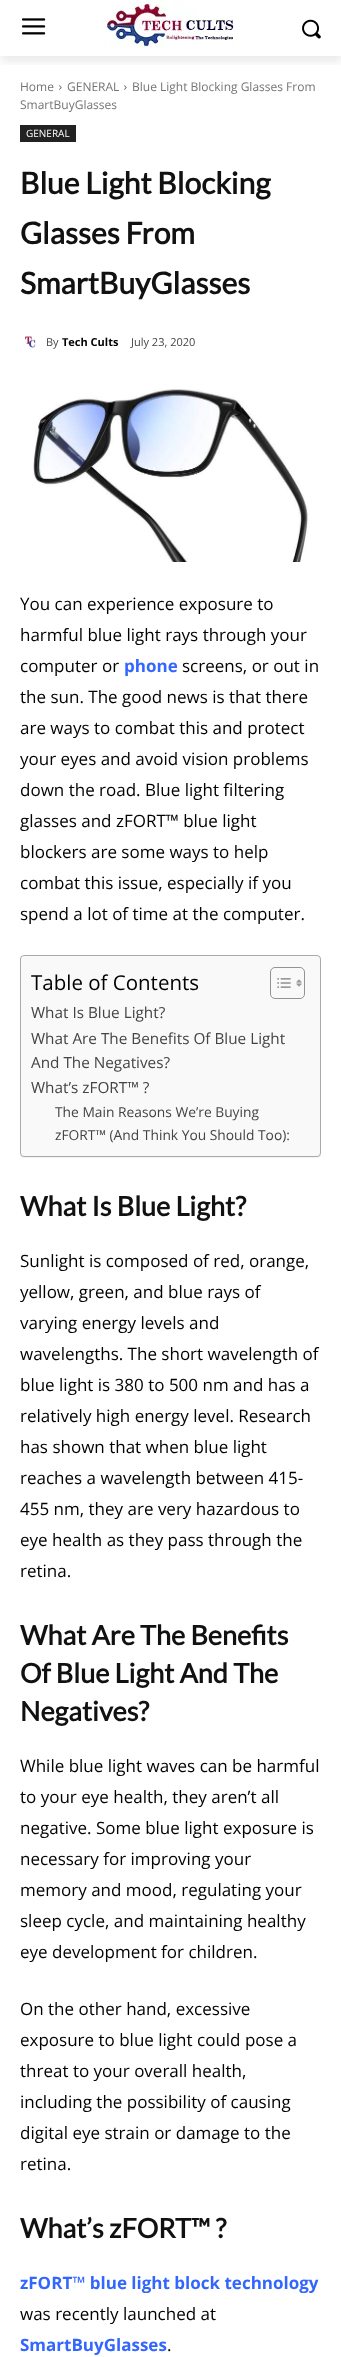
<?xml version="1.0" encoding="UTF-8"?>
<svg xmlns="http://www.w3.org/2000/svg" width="341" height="2357">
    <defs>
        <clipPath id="clip1"><rect x="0" y="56" width="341" height="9"/></clipPath>
        <filter id="blur1" x="-50%" y="-200%" width="200%" height="500%"><feGaussianBlur stdDeviation="4"/></filter>
        <filter id="blur2" x="-50%" y="-200%" width="200%" height="500%"><feGaussianBlur stdDeviation="0.5"/></filter>
    </defs>
    <rect width="100%" height="100%" fill="#FFFFFF"/>
    <image x="22" y="18" width="24" height="17" href="img_01.png"/>
    <image x="104" y="0" width="132" height="48" href="img_02.png"/>
    <image x="302" y="19" width="19" height="20" href="img_03.png"/>
    <g clip-path="url(#clip1)">
        <rect x="1" y="6" width="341" height="56" fill="#000000" fill-opacity="0.08" filter="url(#blur1)"/>
    </g>
    <text x="20" y="91" font-family="Open Sans" font-size="12" fill="#747474">Home</text>
    <image x="59" y="85" width="3" height="5" href="img_04.png"/>
    <text x="67" y="91" font-family="Open Sans" font-size="12" fill="#747474">GENERAL</text>
    <image x="124" y="85" width="3" height="5" href="img_04.png"/>
    <text x="132" y="91" font-family="Open Sans" font-size="12" fill="#747474">Blue Light Blocking Glasses From</text>
    <text x="20" y="109" font-family="Open Sans" font-size="12" fill="#747474">SmartBuyGlasses</text>
    <rect x="20" y="125" width="56" height="17" fill="#222222"/>
    <text x="26" y="137" font-family="Open Sans" font-size="10" fill="#FFFFFF">GENERAL</text>
    <text font-family="Lato" font-size="30" font-weight="700" fill="#111111">
        <tspan x="20" y="194">Blue Light Blocking</tspan>
        <tspan x="20" y="244">Glasses From</tspan>
        <tspan x="20" y="294">SmartBuyGlasses</tspan>
    </text>
    <image x="25" y="336" width="11" height="12" href="img_05.png"/>
    <text x="46" y="346" font-family="Open Sans" font-size="11" fill="#444444">By</text>
    <text x="62" y="346" font-family="Open Sans" font-size="11" font-weight="700" fill="#000000">Tech Cults</text>
    <text x="131" y="346" font-family="Open Sans" font-size="11" fill="#444444">July 23, 2020</text>
    <image x="33" y="389" width="276" height="173" href="img_06.png"/>
    <text font-family="Open Sans" font-size="17" fill="#000000">
        <tspan x="20" y="610">You can experience exposure to</tspan>
        <tspan x="20" y="641">harmful blue light rays through your</tspan>
        <tspan x="20" y="672">computer or</tspan>
    </text>
    <text x="124" y="672" font-family="Open Sans" font-size="17" font-weight="700" fill="#3366FF">phone</text>
    <text x="182" y="672" font-family="Open Sans" font-size="17" fill="#000000">screens, or out in</text>
    <text font-family="Open Sans" font-size="17" fill="#000000">
        <tspan x="20" y="703">the sun. The good news is that there</tspan>
        <tspan x="20" y="734">are ways to combat this and protect</tspan>
        <tspan x="20" y="765">your eyes and avoid vision problems</tspan>
        <tspan x="20" y="796">down the road. Blue light filtering</tspan>
        <tspan x="20" y="827">glasses and zFORT™ blue light</tspan>
        <tspan x="20" y="858">blockers are some ways to help</tspan>
        <tspan x="20" y="889">combat this issue, especially if you</tspan>
        <tspan x="20" y="920">spend a lot of time at the computer.</tspan>
    </text>
    <rect x="20" y="956" width="301" height="202" rx="4" fill="#000000" fill-opacity="0.05" filter="url(#blur2)"/>
    <rect x="20.5" y="955.5" width="300" height="201" rx="3.5" fill="#F9F9F9" stroke="#AAAAAA"/>
    <text x="31" y="990" font-family="Open Sans" font-size="20.5" fill="#000000">Table of Contents</text>
    <rect x="270.5" y="967.5" width="34" height="31" rx="4.5" fill="none" stroke="#999191"/>
    <image x="277" y="978" width="14" height="10" href="img_07.png"/>
    <image x="296" y="979" width="6" height="8" href="img_08.png"/>
    <text font-family="Open Sans" font-size="15.3" fill="#444444">
        <tspan x="31" y="1018">What Is Blue Light?</tspan>
        <tspan x="31" y="1044">What Are The Benefits Of Blue Light</tspan>
        <tspan x="31" y="1068">And The Negatives?</tspan>
        <tspan x="31" y="1093">What’s zFORT™ ?</tspan>
    </text>
    <text font-family="Open Sans" font-size="13.8" fill="#444444">
        <tspan x="55" y="1117">The Main Reasons We’re Buying</tspan>
        <tspan x="55" y="1140">zFORT™ (And Think You Should Too):</tspan>
    </text>
    <text x="20" y="1216" font-family="Lato" font-size="27" font-weight="700" fill="#111111">What Is Blue Light?</text>
    <text font-family="Open Sans" font-size="17" fill="#000000">
        <tspan x="20" y="1267">Sunlight is composed of red, orange,</tspan>
        <tspan x="20" y="1298">yellow, green, and blue rays of</tspan>
        <tspan x="20" y="1329">varying energy levels and</tspan>
        <tspan x="20" y="1360">wavelengths. The short wavelength of</tspan>
        <tspan x="20" y="1391">blue light is 380 to 500 nm and has a</tspan>
        <tspan x="20" y="1422">relatively high energy level. Research</tspan>
        <tspan x="20" y="1453">has shown that when blue light</tspan>
        <tspan x="20" y="1484">reaches a wavelength between 415-</tspan>
        <tspan x="20" y="1515">455 nm, they are very hazardous to</tspan>
        <tspan x="20" y="1546">eye health as they pass through the</tspan>
        <tspan x="20" y="1577">retina.</tspan>
    </text>
    <text font-family="Lato" font-size="27" font-weight="700" fill="#111111">
        <tspan x="20" y="1645">What Are The Benefits</tspan>
        <tspan x="20" y="1683">Of Blue Light And The</tspan>
        <tspan x="20" y="1721">Negatives?</tspan>
    </text>
    <text font-family="Open Sans" font-size="17" fill="#000000">
        <tspan x="20" y="1772">While blue light waves can be harmful</tspan>
        <tspan x="20" y="1803">to your eye health, they aren’t all</tspan>
        <tspan x="20" y="1834">negative. Some blue light exposure is</tspan>
        <tspan x="20" y="1865">necessary for improving your</tspan>
        <tspan x="20" y="1896">memory and mood, regulating your</tspan>
        <tspan x="20" y="1927">sleep cycle, and maintaining healthy</tspan>
        <tspan x="20" y="1958">eye development for children.</tspan>
    </text>
    <text font-family="Open Sans" font-size="17" fill="#000000">
        <tspan x="20" y="2015">On the other hand, excessive</tspan>
        <tspan x="20" y="2046">exposure to blue light could pose a</tspan>
        <tspan x="20" y="2077">threat to your overall health,</tspan>
        <tspan x="20" y="2108">including the possibility of causing</tspan>
        <tspan x="20" y="2139">digital eye strain or damage to the</tspan>
        <tspan x="20" y="2170">retina.</tspan>
    </text>
    <text x="20" y="2238" font-family="Lato" font-size="27" font-weight="700" fill="#111111">What’s zFORT™ ?</text>
    <text x="20" y="2289" font-family="Open Sans" font-size="17" font-weight="700" fill="#3366FF">zFORT™ blue light block technology</text>
    <text x="20" y="2320" font-family="Open Sans" font-size="17" fill="#000000">was recently launched at</text>
    <text x="20" y="2351" font-family="Open Sans" font-size="17" font-weight="700" fill="#3366FF">SmartBuyGlasses</text>
    <text x="167" y="2351" font-family="Open Sans" font-size="17" fill="#000000">.</text>
</svg>
